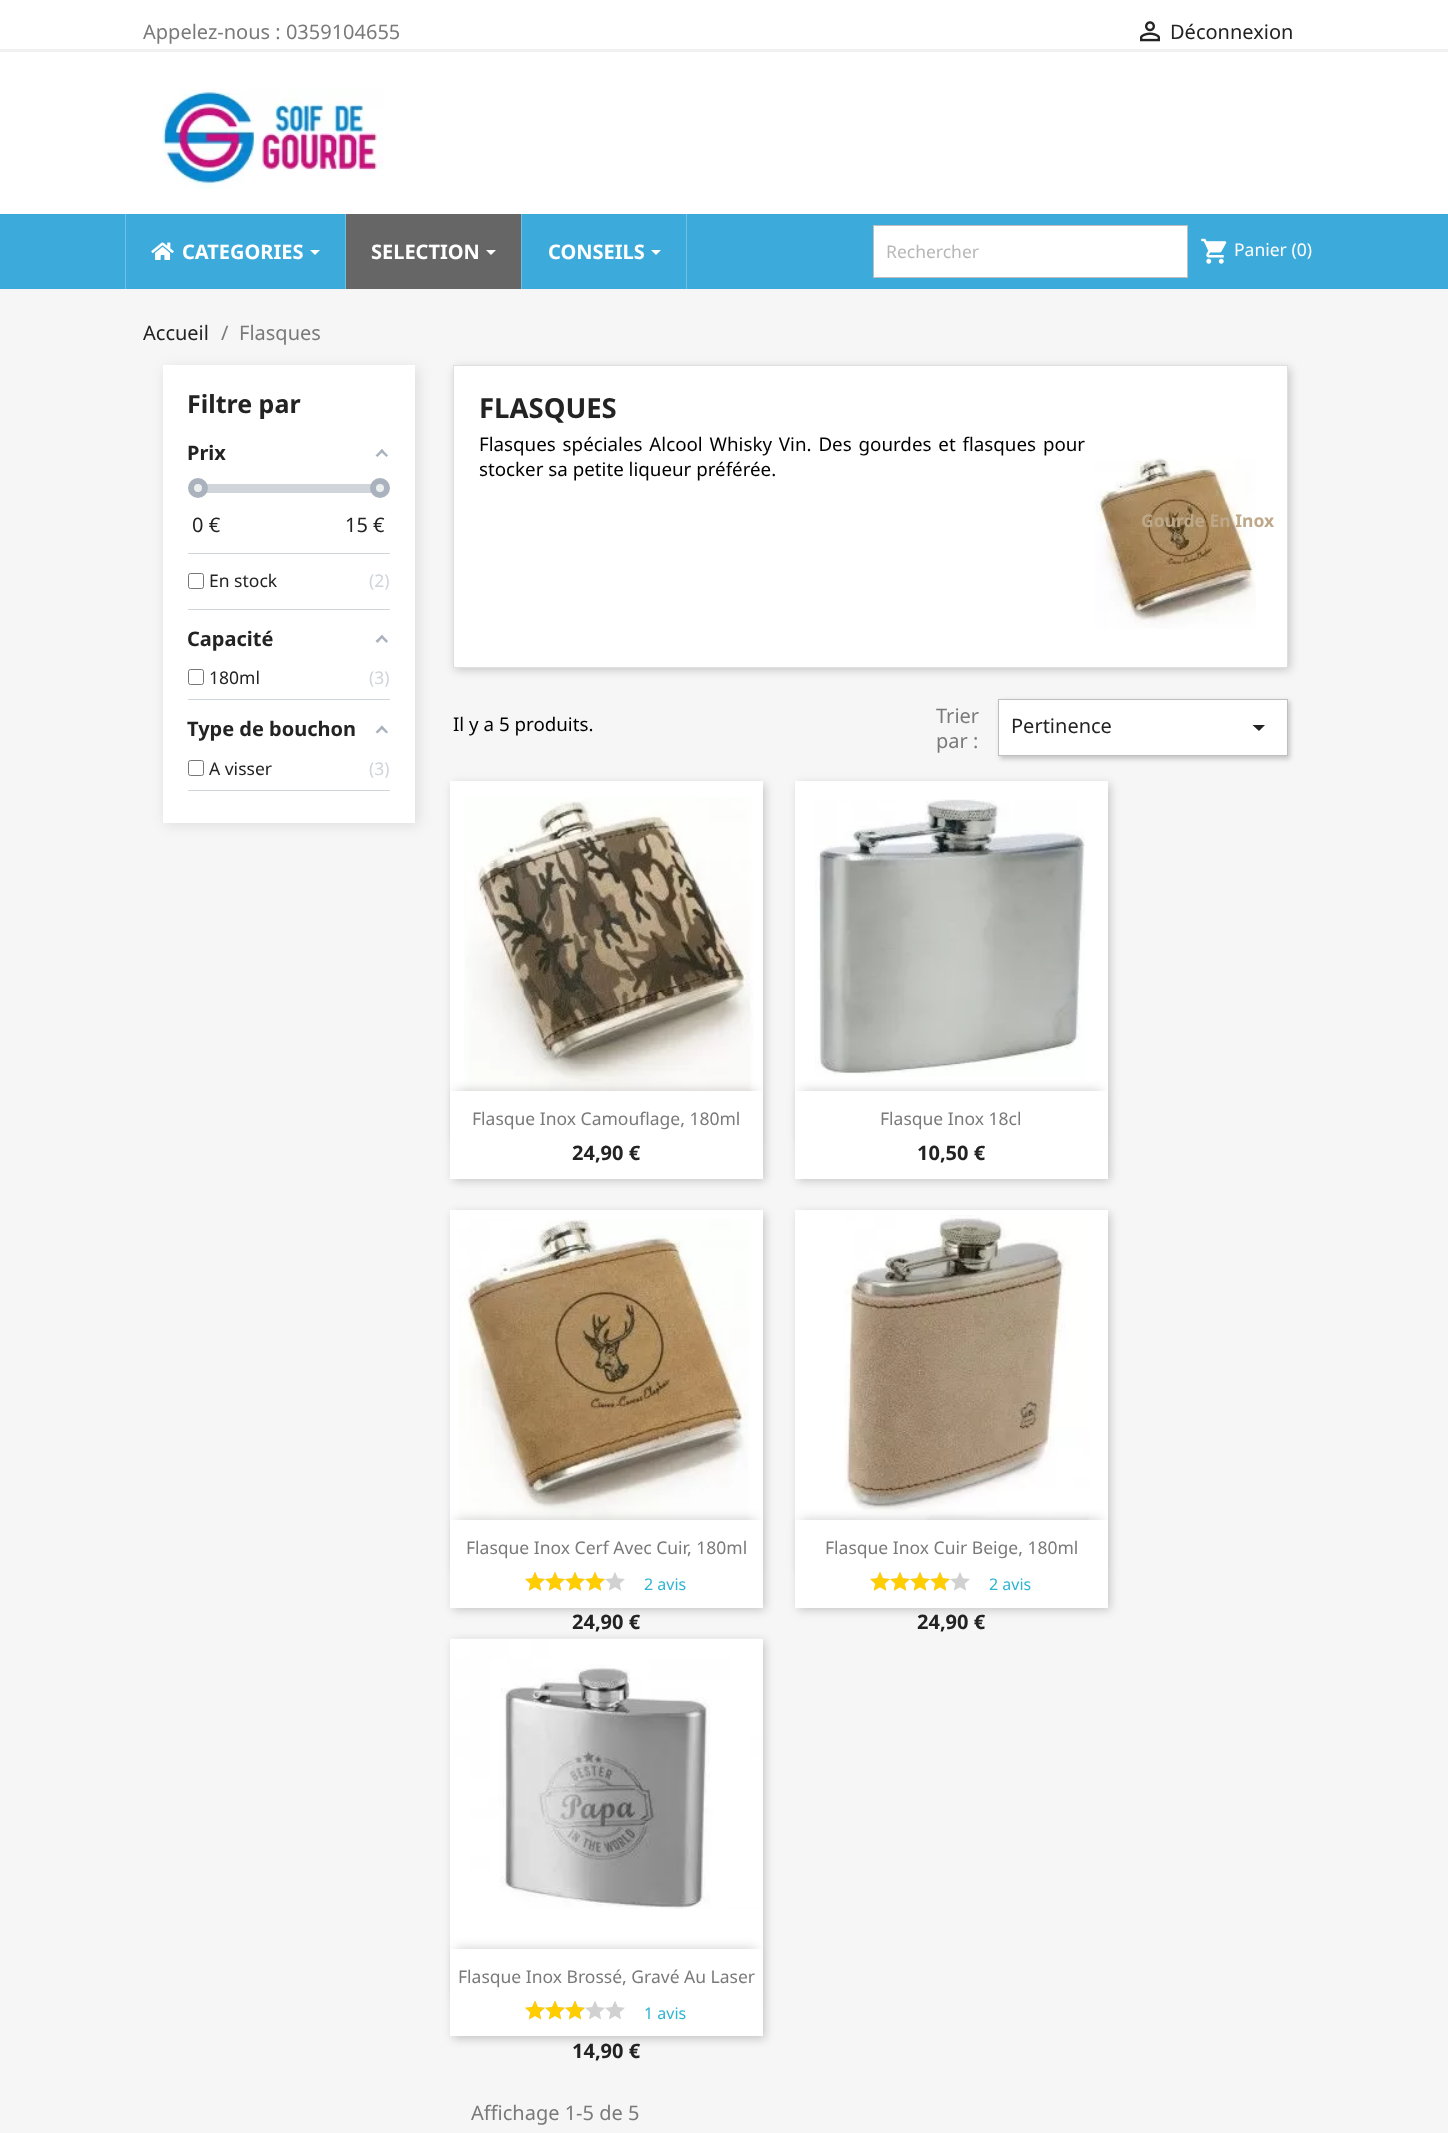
<?xml version="1.0" encoding="UTF-8"?>
<svg xmlns="http://www.w3.org/2000/svg" width="1448" height="2133">
    <defs>
        <filter id="blur1" x="-50%" y="-200%" width="200%" height="500%"><feGaussianBlur stdDeviation="5"/></filter>
        <filter id="blur2" x="-50%" y="-200%" width="200%" height="500%"><feGaussianBlur stdDeviation="7"/></filter>
        <filter id="blur3" x="-50%" y="-200%" width="200%" height="500%"><feGaussianBlur stdDeviation="2.5"/></filter>
        <filter id="blur4" x="-50%" y="-200%" width="200%" height="500%"><feGaussianBlur stdDeviation="6"/></filter>
    </defs>
    <rect width="100%" height="100%" fill="#FFFFFF"/>
    <rect x="0" y="49" width="1448" height="3" fill="#F1F1F1"/>
    <text x="143" y="39" font-family="Noto Sans" font-size="20" fill="#7A7A7A">Appelez-nous : 0359104655</text>
    <image x="1140" y="21" width="20" height="21" href="img_01.png"/>
    <text x="1170" y="39" font-family="Noto Sans" font-size="20" fill="#232323">Déconnexion</text>
    <image x="162" y="89" width="222" height="100" href="img_02.png"/>
    <rect x="0" y="214" width="1448" height="75" fill="#3CABDB"/>
    <rect x="873.5" y="225.5" width="314" height="52" fill="#FFFFFF" stroke="#BFBFBF"/>
    <text x="886" y="258" font-family="Noto Sans" font-size="17.5" fill="#B7B7B7">Rechercher</text>
    <image x="1201" y="238" width="26" height="26" href="img_03.png"/>
    <text x="1234" y="256" font-family="Noto Sans" font-size="17.5" fill="#FFFFFF">Panier (0)</text>
    <rect x="345" y="214" width="1" height="75" fill="#6FC1E4"/>
    <rect x="125" y="214" width="1" height="75" fill="#6FC1E4"/>
    <image x="151" y="242" width="23" height="18" href="img_04.png"/>
    <text x="182" y="259" font-family="Noto Sans" font-size="20" font-weight="700" fill="#FFFFFF">CATEGORIES</text>
    <path d="M 310 250 H 320 L 315 255 Z" fill="#FFFFFF"/>
    <rect x="521" y="214" width="1" height="75" fill="#6FC1E4"/>
    <rect x="346" y="214" width="175" height="75" fill="#666666"/>
    <text x="371" y="259" font-family="Noto Sans" font-size="20" font-weight="700" fill="#FFFFFF">SELECTION</text>
    <path d="M 486 250 H 496 L 491 255 Z" fill="#FFFFFF"/>
    <rect x="0" y="289" width="1448" height="1844" fill="#F6F6F6"/>
    <rect x="455" y="368" width="835" height="302" fill="#000000" fill-opacity="0.2" filter="url(#blur1)"/>
    <rect x="453.5" y="365.5" width="834" height="302" fill="#FFFFFF" stroke="#DFDFDF"/>
    <image x="1095" y="458" width="161" height="171" href="img_05.png"/>
    <text x="1141" y="527" font-family="Noto Sans" font-size="17.5" font-weight="700" fill="#BDA88A">Gourde En Inox</text>
    <rect x="686" y="214" width="1" height="75" fill="#6FC1E4"/>
    <text x="548" y="259" font-family="Noto Sans" font-size="20" font-weight="700" fill="#FFFFFF">CONSEILS</text>
    <path d="M 651 250 H 661 L 656 255 Z" fill="#FFFFFF"/>
    <text x="143" y="340" font-family="Noto Sans" font-size="20" fill="#232323">Accueil</text>
    <text x="221" y="340" font-family="Noto Sans" font-size="20" fill="#7A7A7A">/</text>
    <text x="239" y="340" font-family="Noto Sans" font-size="20" fill="#7A7A7A">Flasques</text>
    <rect x="165" y="368" width="253" height="457" fill="#000000" fill-opacity="0.1" filter="url(#blur2)"/>
    <rect x="163" y="365" width="252" height="458" fill="#FFFFFF"/>
    <text x="187" y="413" font-family="Noto Sans" font-size="25" font-weight="700" fill="#232323">Filtre par</text>
    <rect x="188" y="553" width="202" height="1" fill="#D0D5DB"/>
    <text x="187" y="460" font-family="Noto Sans" font-size="20" font-weight="700" fill="#232323">Prix</text>
    <path d="M 382 449 L 388 455.5 L 386.5 457 L 380 451 Z" fill="#AAB2BD"/>
    <path d="M 382 449 L 383.5 451 L 377.5 457 L 375.5 455.5 Z" fill="#AAB2BD"/>
    <rect x="206" y="484" width="166" height="9" fill="#D0D5DB"/>
    <circle cx="198" cy="488" r="7" fill="#ECEFF0" stroke="#AAB2BD" stroke-width="6"/>
    <circle cx="380" cy="488" r="7" fill="#ECEFF0" stroke="#AAB2BD" stroke-width="6"/>
    <text x="192" y="532" font-family="Noto Sans" font-size="20" fill="#232323">0 €</text>
    <text x="345" y="532" font-family="Noto Sans" font-size="20" fill="#232323">15 €</text>
    <rect x="188" y="609" width="202" height="1" fill="#D0D5DB"/>
    <rect x="188.5" y="573.5" width="15" height="15" rx="2" fill="none" stroke="#767676"/>
    <text x="209" y="587" font-family="Noto Sans" font-size="17.5" fill="#232323">En stock</text>
    <text x="369" y="587" font-family="Noto Sans" font-size="17.5" fill="#D0D5DB">(2)</text>
    <rect x="188" y="699" width="202" height="1" fill="#D0D5DB"/>
    <text x="187" y="646" font-family="Noto Sans" font-size="20" font-weight="700" fill="#232323">Capacité</text>
    <path d="M 382 635 L 388 641 L 386.5 643 L 380 636.5 Z" fill="#AAB2BD"/>
    <path d="M 382 635 L 383.5 636.5 L 377.5 643 L 375.5 641 Z" fill="#AAB2BD"/>
    <rect x="188.5" y="669.5" width="15" height="15" rx="2" fill="none" stroke="#767676"/>
    <text x="209" y="684" font-family="Noto Sans" font-size="17.5" fill="#232323">180ml</text>
    <text x="369" y="684" font-family="Noto Sans" font-size="17.5" fill="#D0D5DB">(3)</text>
    <rect x="188" y="790" width="202" height="1" fill="#D0D5DB"/>
    <text x="187" y="736" font-family="Noto Sans" font-size="20" font-weight="700" fill="#232323">Type de bouchon</text>
    <path d="M 382 725.5 L 388 732 L 386.5 733.5 L 380 727.5 Z" fill="#AAB2BD"/>
    <path d="M 382 725.5 L 383.5 727.5 L 377.5 733.5 L 375.5 732 Z" fill="#AAB2BD"/>
    <rect x="188.5" y="760.5" width="15" height="15" rx="2" fill="none" stroke="#767676"/>
    <text x="209" y="775" font-family="Noto Sans" font-size="17.5" fill="#232323">A visser</text>
    <text x="369" y="775" font-family="Noto Sans" font-size="17.5" fill="#D0D5DB">(3)</text>
    <text x="479" y="418" font-family="Noto Sans" font-size="27.5" font-weight="700" fill="#232323">FLASQUES</text>
    <text font-family="Noto Sans" font-size="18.75" fill="#000000">
        <tspan x="479" y="451" word-spacing="2">Flasques spéciales Alcool Whisky Vin. Des gourdes et flasques pour</tspan>
        <tspan x="479" y="476">stocker sa petite liqueur préférée.</tspan>
    </text>
    <text x="453" y="731" font-family="Noto Sans" font-size="18.75" fill="#000000">Il y a 5 produits.</text>
    <text font-family="Noto Sans" font-size="20" fill="#7A7A7A">
        <tspan x="936" y="723">Trier</tspan>
        <tspan x="936" y="748">par :</tspan>
    </text>
    <rect x="1000" y="701" width="290" height="58" fill="#000000" fill-opacity="0.2" filter="url(#blur3)"/>
    <rect x="998.5" y="699.5" width="289" height="56" fill="#FFFFFF" stroke="#BFBFBF"/>
    <text x="1011" y="733" font-family="Noto Sans" font-size="20" fill="#232323">Pertinence</text>
    <path d="M 1252.5 725 H 1265 L 1259 731 Z" fill="#232323"/>
    <rect x="453" y="784" width="312" height="397" fill="#000000" fill-opacity="0.2" filter="url(#blur1)"/>
    <rect x="450" y="781" width="313" height="310" fill="#FFFFFF"/>
    <image x="464" y="797" width="290" height="294" href="img_06.png"/>
    <rect x="456" y="1091" width="300" height="50" fill="#000000" fill-opacity="0.2" filter="url(#blur4)"/>
    <rect x="450" y="1091" width="313" height="88" fill="#FFFFFF"/>
    <text x="472" y="1125" font-family="Noto Sans" font-size="17.5" fill="#7A7A7A">Flasque Inox Camouflage, 180ml</text>
    <text x="572" y="1160" font-family="Noto Sans" font-size="20" font-weight="700" fill="#232323">24,90 €</text>
    <rect x="798" y="784" width="312" height="397" fill="#000000" fill-opacity="0.2" filter="url(#blur1)"/>
    <rect x="795" y="781" width="313" height="310" fill="#FFFFFF"/>
    <image x="815" y="799" width="270" height="278" href="img_07.png"/>
    <rect x="801" y="1091" width="300" height="50" fill="#000000" fill-opacity="0.2" filter="url(#blur4)"/>
    <rect x="795" y="1091" width="313" height="88" fill="#FFFFFF"/>
    <text x="880" y="1125" font-family="Noto Sans" font-size="17.5" fill="#7A7A7A">Flasque Inox 18cl</text>
    <text x="917" y="1160" font-family="Noto Sans" font-size="20" font-weight="700" fill="#232323">10,50 €</text>
    <rect x="453" y="1213" width="312" height="397" fill="#000000" fill-opacity="0.2" filter="url(#blur1)"/>
    <rect x="450" y="1210" width="313" height="310" fill="#FFFFFF"/>
    <image x="459" y="1219" width="290" height="301" href="img_08.png"/>
    <rect x="456" y="1520" width="300" height="50" fill="#000000" fill-opacity="0.2" filter="url(#blur4)"/>
    <rect x="450" y="1520" width="313" height="88" fill="#FFFFFF"/>
    <text x="466" y="1554" font-family="Noto Sans" font-size="17.5" fill="#7A7A7A">Flasque Inox Cerf Avec Cuir, 180ml</text>
    <image x="525" y="1572" width="20" height="19" href="img_09.png"/>
    <image x="545" y="1572" width="20" height="19" href="img_09.png"/>
    <image x="565" y="1572" width="20" height="19" href="img_09.png"/>
    <image x="585" y="1572" width="20" height="19" href="img_09.png"/>
    <image x="605" y="1572" width="20" height="19" href="img_09.png"/>
    <image x="525" y="1572" width="20" height="19" href="img_10.png"/>
    <image x="545" y="1572" width="20" height="19" href="img_10.png"/>
    <image x="565" y="1572" width="20" height="19" href="img_10.png"/>
    <image x="585" y="1572" width="20" height="19" href="img_10.png"/>
    <text x="644" y="1590" font-family="Noto Sans" font-size="16" fill="#2FB5D2">2 avis</text>
    <rect x="453" y="1641" width="312" height="398" fill="#000000" fill-opacity="0.2" filter="url(#blur1)"/>
    <text x="572" y="1629" font-family="Noto Sans" font-size="20" font-weight="700" fill="#232323">24,90 €</text>
    <rect x="798" y="1213" width="312" height="397" fill="#000000" fill-opacity="0.2" filter="url(#blur1)"/>
    <rect x="795" y="1210" width="313" height="310" fill="#FFFFFF"/>
    <image x="844" y="1215" width="245" height="305" href="img_11.png"/>
    <rect x="801" y="1520" width="300" height="50" fill="#000000" fill-opacity="0.2" filter="url(#blur4)"/>
    <rect x="795" y="1520" width="313" height="88" fill="#FFFFFF"/>
    <text x="825" y="1554" font-family="Noto Sans" font-size="17.5" fill="#7A7A7A">Flasque Inox Cuir Beige, 180ml</text>
    <image x="870" y="1572" width="20" height="19" href="img_09.png"/>
    <image x="890" y="1572" width="20" height="19" href="img_09.png"/>
    <image x="910" y="1572" width="20" height="19" href="img_09.png"/>
    <image x="930" y="1572" width="20" height="19" href="img_09.png"/>
    <image x="950" y="1572" width="20" height="19" href="img_09.png"/>
    <image x="870" y="1572" width="20" height="19" href="img_10.png"/>
    <image x="890" y="1572" width="20" height="19" href="img_10.png"/>
    <image x="910" y="1572" width="20" height="19" href="img_10.png"/>
    <image x="930" y="1572" width="20" height="19" href="img_10.png"/>
    <text x="989" y="1590" font-family="Noto Sans" font-size="16" fill="#2FB5D2">2 avis</text>
    <text x="917" y="1629" font-family="Noto Sans" font-size="20" font-weight="700" fill="#232323">24,90 €</text>
    <rect x="450" y="1639" width="313" height="310" fill="#FFFFFF"/>
    <image x="454" y="1638" width="308" height="271" href="img_12.png"/>
    <rect x="456" y="1949" width="300" height="50" fill="#000000" fill-opacity="0.2" filter="url(#blur4)"/>
    <rect x="450" y="1949" width="313" height="87" fill="#FFFFFF"/>
    <text x="458" y="1983" font-family="Noto Sans" font-size="17.5" fill="#7A7A7A">Flasque Inox Brossé, Gravé Au Laser</text>
    <image x="525" y="2001" width="20" height="19" href="img_14.png"/>
    <image x="525" y="2000" width="20" height="20" href="img_13.png"/>
    <image x="545" y="2001" width="20" height="19" href="img_14.png"/>
    <image x="545" y="2000" width="20" height="20" href="img_13.png"/>
    <image x="565" y="2001" width="20" height="19" href="img_14.png"/>
    <image x="565" y="2000" width="20" height="20" href="img_13.png"/>
    <image x="585" y="2001" width="20" height="19" href="img_14.png"/>
    <image x="605" y="2001" width="20" height="19" href="img_14.png"/>
    <text x="644" y="2019" font-family="Noto Sans" font-size="16" fill="#2FB5D2">1 avis</text>
    <text x="572" y="2058" font-family="Noto Sans" font-size="20" font-weight="700" fill="#232323">14,90 €</text>
    <text x="471" y="2120" font-family="Noto Sans" font-size="20" fill="#7A7A7A">Affichage 1-5 de 5</text>
</svg>
